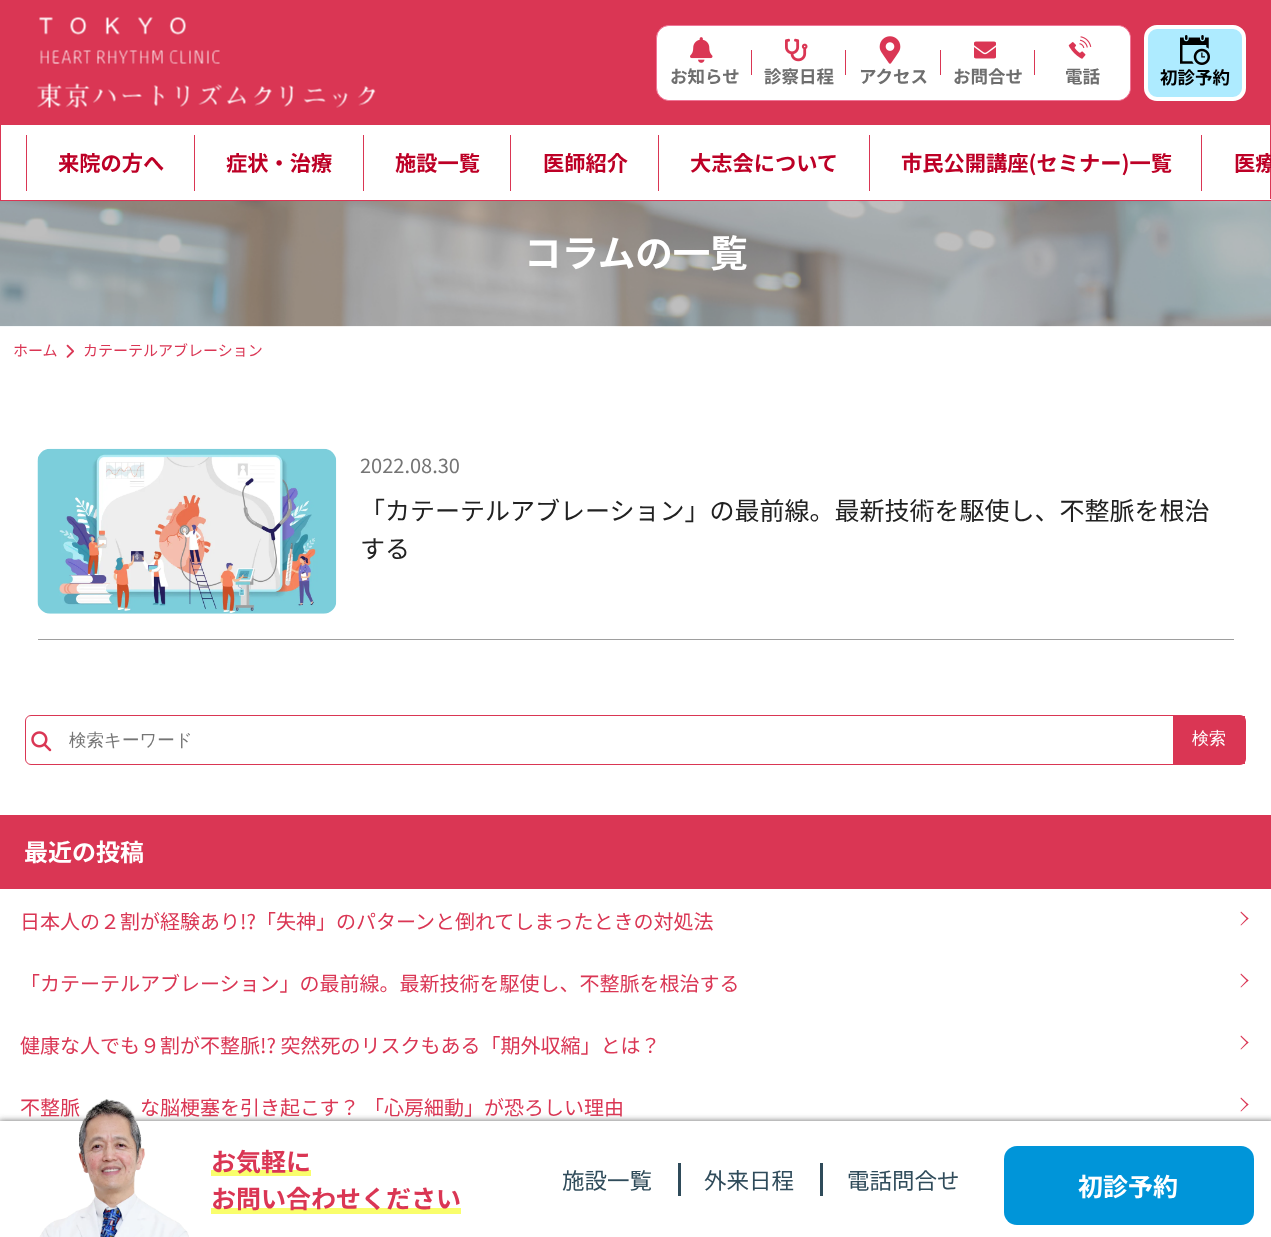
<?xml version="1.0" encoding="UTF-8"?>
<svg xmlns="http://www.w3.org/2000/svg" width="1271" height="1237">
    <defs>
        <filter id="blur1" x="-50%" y="-200%" width="200%" height="500%"><feGaussianBlur stdDeviation="3"/></filter>
    </defs>
    <rect width="100%" height="100%" fill="#FFFFFF"/>
    <rect x="0" y="0" width="1271" height="125" fill="#DA3654"/>
    <image x="37" y="17" width="339" height="91" href="img_01.png"/>
    <rect x="656.5" y="25.5" width="474" height="75" rx="12.5" fill="#FFFFFF" stroke="#EF7596"/>
    <rect x="658" y="26" width="95" height="74" rx="13" fill="#FFFFFF"/>
    <image x="690" y="37" width="23" height="26" href="img_02.png"/>
    <text x="670" y="83" font-family="Noto Sans JP" font-size="17.5" font-weight="700" fill="#6E6E6E">お知らせ</text>
    <rect x="751" y="50" width="1" height="25" fill="#DA3654"/>
    <image x="785" y="38" width="23" height="24" href="img_03.png"/>
    <text x="764" y="83" font-family="Noto Sans JP" font-size="17.5" font-weight="700" fill="#6E6E6E">診察日程</text>
    <rect x="845" y="50" width="1" height="25" fill="#DA3654"/>
    <image x="879" y="36" width="22" height="28" href="img_04.png"/>
    <text x="859" y="83" font-family="Noto Sans JP" font-size="17.5" font-weight="700" fill="#6E6E6E">アクセス</text>
    <rect x="940" y="50" width="1" height="25" fill="#DA3654"/>
    <image x="974" y="41" width="22" height="18" href="img_05.png"/>
    <text x="953" y="83" font-family="Noto Sans JP" font-size="17.5" font-weight="700" fill="#6E6E6E">お問合せ</text>
    <rect x="1034" y="50" width="1" height="25" fill="#DA3654"/>
    <rect x="1035" y="26" width="95" height="74" rx="13" fill="#FFFFFF"/>
    <image x="1068" y="36" width="24" height="23" href="img_06.png"/>
    <text x="1065" y="83" font-family="Noto Sans JP" font-size="17.5" font-weight="700" fill="#6E6E6E">電話</text>
    <rect x="1146" y="27" width="98" height="72" rx="11" fill="#AEEBFF" stroke="#FFFFFF" stroke-width="4"/>
    <image x="1180" y="35" width="30" height="30" href="img_07.png"/>
    <text x="1160" y="84" font-family="Noto Sans JP" font-size="17.5" font-weight="700" fill="#000000">初診予約</text>
    <rect x="1270" y="125" width="1" height="76" fill="#DA3654"/>
    <rect x="0" y="200" width="1271" height="1" fill="#DA3654"/>
    <rect x="0" y="125" width="1" height="76" fill="#DA3654"/>
    <rect x="26" y="135" width="1" height="56" fill="#DA3654"/>
    <text x="58" y="171" font-family="Noto Sans JP" font-size="21.25" font-weight="700" fill="#BD0026">来院の方へ</text>
    <rect x="194" y="135" width="1" height="56" fill="#DA3654"/>
    <text x="226" y="171" font-family="Noto Sans JP" font-size="21.25" font-weight="700" fill="#BD0026">症状・治療</text>
    <rect x="363" y="135" width="1" height="56" fill="#DA3654"/>
    <text x="395" y="171" font-family="Noto Sans JP" font-size="21.25" font-weight="700" fill="#BD0026">施設一覧</text>
    <rect x="510" y="135" width="1" height="56" fill="#DA3654"/>
    <text x="543" y="171" font-family="Noto Sans JP" font-size="21.25" font-weight="700" fill="#BD0026">医師紹介</text>
    <rect x="658" y="135" width="1" height="56" fill="#DA3654"/>
    <text x="690" y="171" font-family="Noto Sans JP" font-size="21.25" font-weight="700" fill="#BD0026">大志会について</text>
    <rect x="869" y="135" width="1" height="56" fill="#DA3654"/>
    <text x="901" y="171" font-family="Noto Sans JP" font-size="21.25" font-weight="700" fill="#BD0026">市民公開講座(セミナー)一覧</text>
    <rect x="1201" y="135" width="1" height="56" fill="#DA3654"/>
    <rect x="1270" y="199" width="1" height="1" fill="#FFFFFF"/>
    <text x="1234" y="171" font-family="Noto Sans JP" font-size="21.25" font-weight="700" fill="#BD0026">医療</text>
    <image x="0" y="201" width="1271" height="126" href="img_08.png"/>
    <text x="524" y="267" font-family="Noto Sans JP" font-size="37.5" font-weight="700" fill="#FFFFFF">コラムの一覧</text>
    <text x="13" y="356" font-family="Noto Sans JP" font-size="15" fill="#DA3654">ホーム</text>
    <image x="66" y="344" width="8" height="14" href="img_09.png"/>
    <text x="83" y="356" font-family="Noto Sans JP" font-size="15" fill="#DA3654">カテーテルアブレーション</text>
    <rect x="38" y="639" width="1196" height="1" fill="#9E9E9E"/>
    <image x="37" y="448" width="300" height="166" href="img_10.png"/>
    <text x="360" y="473" font-family="Noto Sans JP" font-size="20" fill="#757575">2022.08.30</text>
    <text font-family="Noto Sans JP" font-size="25" fill="#212121">
        <tspan x="360" y="520">「カテーテルアブレーション」の最前線。最新技術を駆使し、不整脈を根治</tspan>
        <tspan x="360" y="558">する</tspan>
    </text>
    <rect x="25.5" y="715.5" width="1220" height="49" rx="5.5" fill="none" stroke="#DA3654"/>
    <image x="31" y="731" width="21" height="21" href="img_11.png"/>
    <text x="69" y="746" font-family="WenQuanYi Zen Hei" font-size="17.5" font-weight="500" fill="#757575">検索キーワード</text>
    <rect x="1173" y="716" width="72" height="48" fill="#DA3654"/>
    <text x="1192" y="744" font-family="WenQuanYi Zen Hei" font-size="17" font-weight="500" fill="#FFFFFF">検索</text>
    <rect x="0" y="815" width="1271" height="74" fill="#DA3654"/>
    <text x="24" y="861" font-family="Noto Sans JP" font-size="24" font-weight="700" fill="#FFFFFF">最近の投稿</text>
    <text x="20" y="929" font-family="Noto Sans JP" font-size="20" fill="#DA3654">日本人の２割が経験あり!?「失神」のパターンと倒れてしまったときの対処法</text>
    <path d="M 1241 911.5 L 1248.5 918.5 L 1247.5 919.5 L 1240.5 912.5 Z" fill="#DA3654"/>
    <path d="M 1247.5 917.5 L 1248.5 918.5 L 1241 925.5 L 1240.5 925 Z" fill="#DA3654"/>
    <text x="20" y="991" font-family="Noto Sans JP" font-size="20" fill="#DA3654">「カテーテルアブレーション」の最前線。最新技術を駆使し、不整脈を根治する</text>
    <path d="M 1241 973.5 L 1248.5 980.5 L 1247.5 981.5 L 1240.5 974.5 Z" fill="#DA3654"/>
    <path d="M 1247.5 979.5 L 1248.5 980.5 L 1241 987.5 L 1240.5 987 Z" fill="#DA3654"/>
    <text x="20" y="1053" font-family="Noto Sans JP" font-size="20" fill="#DA3654">健康な人でも９割が不整脈!? 突然死のリスクもある「期外収縮」とは？</text>
    <path d="M 1241 1035.5 L 1248.5 1042.5 L 1247.5 1043.5 L 1240.5 1036.5 Z" fill="#DA3654"/>
    <path d="M 1247.5 1041.5 L 1248.5 1042.5 L 1241 1049.5 L 1240.5 1049 Z" fill="#DA3654"/>
    <text x="20" y="1115" font-family="Noto Sans JP" font-size="20" fill="#DA3654">不整脈</text>
    <text x="140" y="1115" font-family="Noto Sans JP" font-size="20" fill="#DA3654">な脳梗塞を引き起こす？ 「心房細動」が恐ろしい理由</text>
    <path d="M 1241 1097.5 L 1248.5 1104.5 L 1247.5 1105.5 L 1240.5 1098.5 Z" fill="#DA3654"/>
    <path d="M 1247.5 1103.5 L 1248.5 1104.5 L 1241 1111.5 L 1240.5 1111 Z" fill="#DA3654"/>
    <rect x="-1" y="1121" width="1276" height="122" fill="#666666" filter="url(#blur1)"/>
    <rect x="0" y="1121" width="1271" height="116" fill="#FFFFFF"/>
    <image x="39" y="1099" width="150" height="138" href="img_12.png"/>
    <rect x="211" y="1170" width="100" height="6" fill="#F9FE6C"/>
    <text x="211" y="1171" font-family="Noto Sans JP" font-size="25" font-weight="700" fill="#DA3654">お気軽に</text>
    <rect x="211" y="1208" width="250" height="6" fill="#F9FE6C"/>
    <text x="211" y="1208" font-family="Noto Sans JP" font-size="25" font-weight="700" fill="#DA3654">お問い合わせください</text>
    <rect x="678" y="1163" width="3" height="33" fill="#2F4B5A"/>
    <text x="562" y="1189" font-family="Noto Sans JP" font-size="22.5" fill="#2F4B5A">施設一覧</text>
    <rect x="820" y="1163" width="3" height="33" fill="#2F4B5A"/>
    <text x="704" y="1189" font-family="Noto Sans JP" font-size="22.5" fill="#2F4B5A">外来日程</text>
    <text x="847" y="1189" font-family="Noto Sans JP" font-size="22.5" fill="#2F4B5A">電話問合せ</text>
    <rect x="1004" y="1146" width="250" height="79" rx="13" fill="#0095D9"/>
    <text x="1078" y="1196" font-family="Noto Sans JP" font-size="25" font-weight="700" fill="#FFFFFF">初診予約</text>
</svg>
